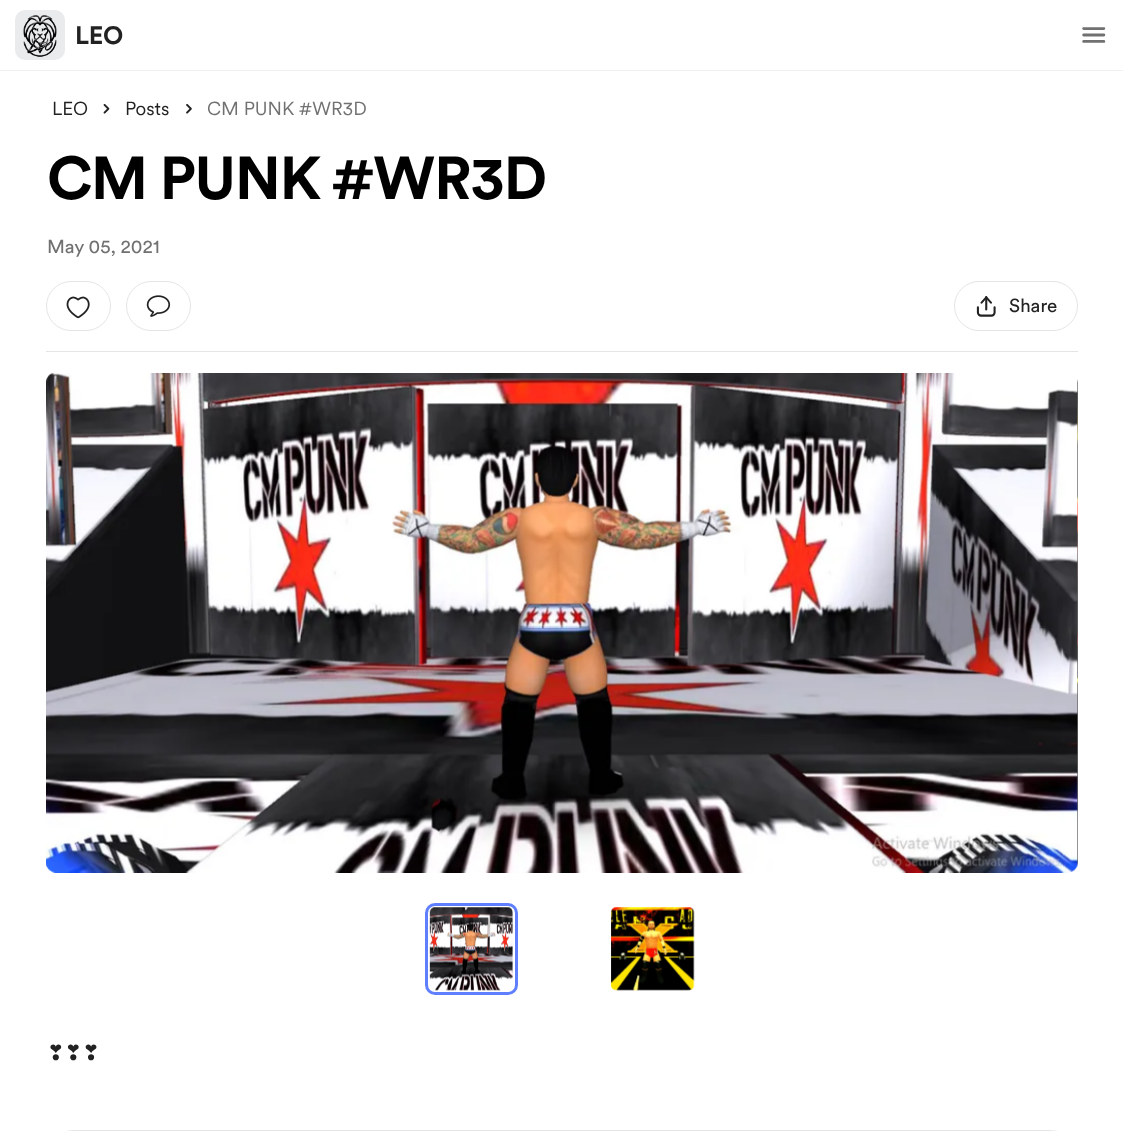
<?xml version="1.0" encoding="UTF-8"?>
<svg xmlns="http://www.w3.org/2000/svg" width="1123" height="1131">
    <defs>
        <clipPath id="clip1"><rect x="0" y="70" width="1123" height="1"/></clipPath>
        <filter id="blur1" x="-50%" y="-200%" width="200%" height="500%"><feGaussianBlur stdDeviation="0.5"/></filter>
    </defs>
    <rect width="100%" height="100%" fill="#FFFFFF"/>
    <g clip-path="url(#clip1)">
        <rect x="0" y="1" width="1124" height="70" fill="#000000" fill-opacity="0.06" filter="url(#blur1)"/>
    </g>
    <image x="15" y="10" width="50" height="50" href="img_01.png"/>
    <image x="23" y="15" width="34" height="42" href="img_02.png"/>
    <text x="75" y="44" font-family="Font" font-size="25" font-weight="700" fill="#222222">LEO</text>
    <image x="1082" y="27" width="24" height="16" href="img_03.png"/>
    <text x="52" y="115" font-family="Font" font-size="18.75" fill="#222222">LEO</text>
    <image x="103" y="104" width="7" height="10" href="img_04.png"/>
    <text x="125" y="115" font-family="Font" font-size="18.75" fill="#222222">Posts</text>
    <image x="186" y="104" width="6" height="10" href="img_05.png"/>
    <text x="207" y="115" font-family="Font" font-size="18.75" fill="#717171">CM PUNK #WR3D</text>
    <text x="47" y="199" font-family="Font" font-size="60" font-weight="700" letter-spacing="-1.5" fill="#000000">CM PUNK #WR3D</text>
    <text x="47" y="253" font-family="'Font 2'" font-size="18.75" fill="#717171">May 05, 2021</text>
    <rect x="46" y="351" width="1032" height="1" fill="#E5E5E5"/>
    <rect x="46.5" y="281.5" width="64" height="49" rx="24.5" fill="none" stroke="#E5E5E5"/>
    <image x="66" y="296" width="24" height="23" href="img_06.png"/>
    <rect x="126.5" y="281.5" width="64" height="49" rx="24.5" fill="none" stroke="#E5E5E5"/>
    <image x="146" y="295" width="25" height="22" href="img_07.png"/>
    <rect x="954.5" y="281.5" width="123" height="49" rx="24.5" fill="none" stroke="#E5E5E5"/>
    <image x="976" y="296" width="20" height="21" href="img_08.png"/>
    <text x="1009" y="312" font-family="'Font 2'" font-size="18.75" fill="#222222">Share</text>
    <image x="46" y="373" width="1032" height="500" href="img_09.png"/>
    <image x="46" y="373" width="1032" height="500" href="img_10.png"/>
    <image x="1077" y="379" width="1" height="488" href="img_11.png"/>
    <rect x="426.5" y="904.5" width="90" height="89" rx="8.5" fill="none" stroke="#5F7FFF" stroke-width="3"/>
    <image x="429" y="907" width="84" height="84" href="img_12.png"/>
    <image x="430" y="907" width="83" height="84" href="img_13.png"/>
    <image x="611" y="907" width="84" height="84" href="img_14.png"/>
    <image x="611" y="907" width="84" height="84" href="img_15.png"/>
    <text x="47" y="1060" font-family="DejaVu Sans" font-size="21" fill="#222222">❣❣❣</text>
    <rect x="46.5" y="1130.5" width="1031" height="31" rx="29.5" fill="none" stroke="#E5E5E5"/>
</svg>
